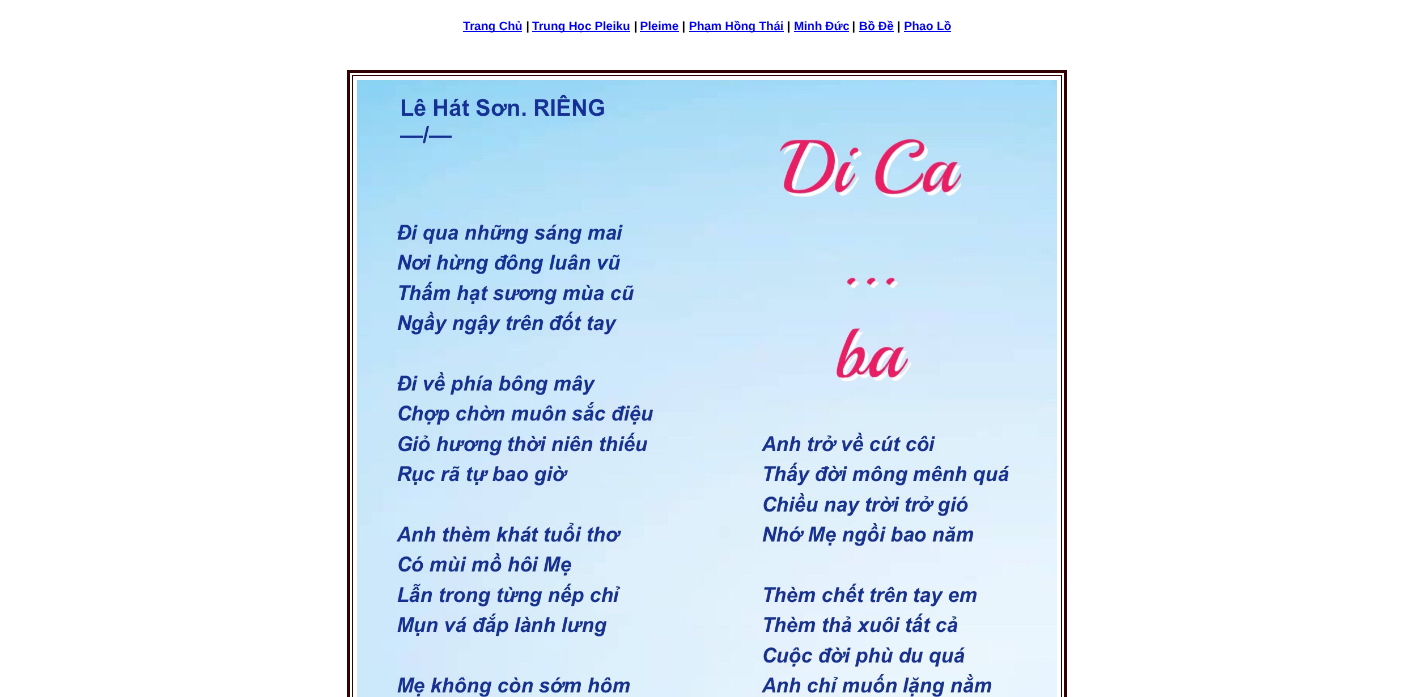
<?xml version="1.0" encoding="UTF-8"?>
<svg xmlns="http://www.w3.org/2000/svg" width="1414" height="697">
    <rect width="100%" height="100%" fill="#FFFFFF"/>
    <rect x="463" y="31" width="59" height="1" fill="#0000EE"/>
    <text x="463" y="30" font-family="Liberation Sans" font-size="12" font-weight="700" fill="#0000EE">Trang Chủ</text>
    <text x="526" y="30" font-family="Liberation Sans" font-size="12" font-weight="700" fill="#000000">|</text>
    <rect x="532" y="31" width="98" height="1" fill="#0000EE"/>
    <text x="532" y="30" font-family="Liberation Sans" font-size="12" font-weight="700" fill="#0000EE">Trung Học Pleiku</text>
    <text x="634" y="30" font-family="Liberation Sans" font-size="12" font-weight="700" fill="#000000">|</text>
    <text x="640" y="30" font-family="Liberation Sans" font-size="12" font-weight="700" fill="#0000EE">Pleime</text>
    <rect x="640" y="31" width="39" height="1" fill="#0000EE"/>
    <text x="682" y="30" font-family="Liberation Sans" font-size="12" font-weight="700" fill="#000000">|</text>
    <rect x="689" y="31" width="95" height="1" fill="#0000EE"/>
    <text x="689" y="30" font-family="Liberation Sans" font-size="12" font-weight="700" fill="#0000EE">Phạm Hồng Thái</text>
    <text x="787" y="30" font-family="Liberation Sans" font-size="12" font-weight="700" fill="#000000">|</text>
    <text x="794" y="30" font-family="Liberation Sans" font-size="12" font-weight="700" fill="#0000EE">Minh Đức</text>
    <rect x="794" y="31" width="55" height="1" fill="#0000EE"/>
    <text x="852" y="30" font-family="Liberation Sans" font-size="12" font-weight="700" fill="#000000">|</text>
    <text x="859" y="30" font-family="Liberation Sans" font-size="12" font-weight="700" fill="#0000EE">Bồ Đề</text>
    <rect x="859" y="31" width="35" height="1" fill="#0000EE"/>
    <text x="897" y="30" font-family="Liberation Sans" font-size="12" font-weight="700" fill="#000000">|</text>
    <text x="904" y="30" font-family="Liberation Sans" font-size="12" font-weight="700" fill="#0000EE">Phao Lồ</text>
    <rect x="904" y="31" width="47" height="1" fill="#0000EE"/>
    <rect x="348.5" y="71.5" width="717" height="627" fill="none" stroke="#330000" stroke-width="3"/>
    <rect x="352.5" y="75.5" width="709" height="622" fill="none" stroke="#330000"/>
    <image x="357" y="80" width="700" height="617" href="img_01.png"/>
</svg>
